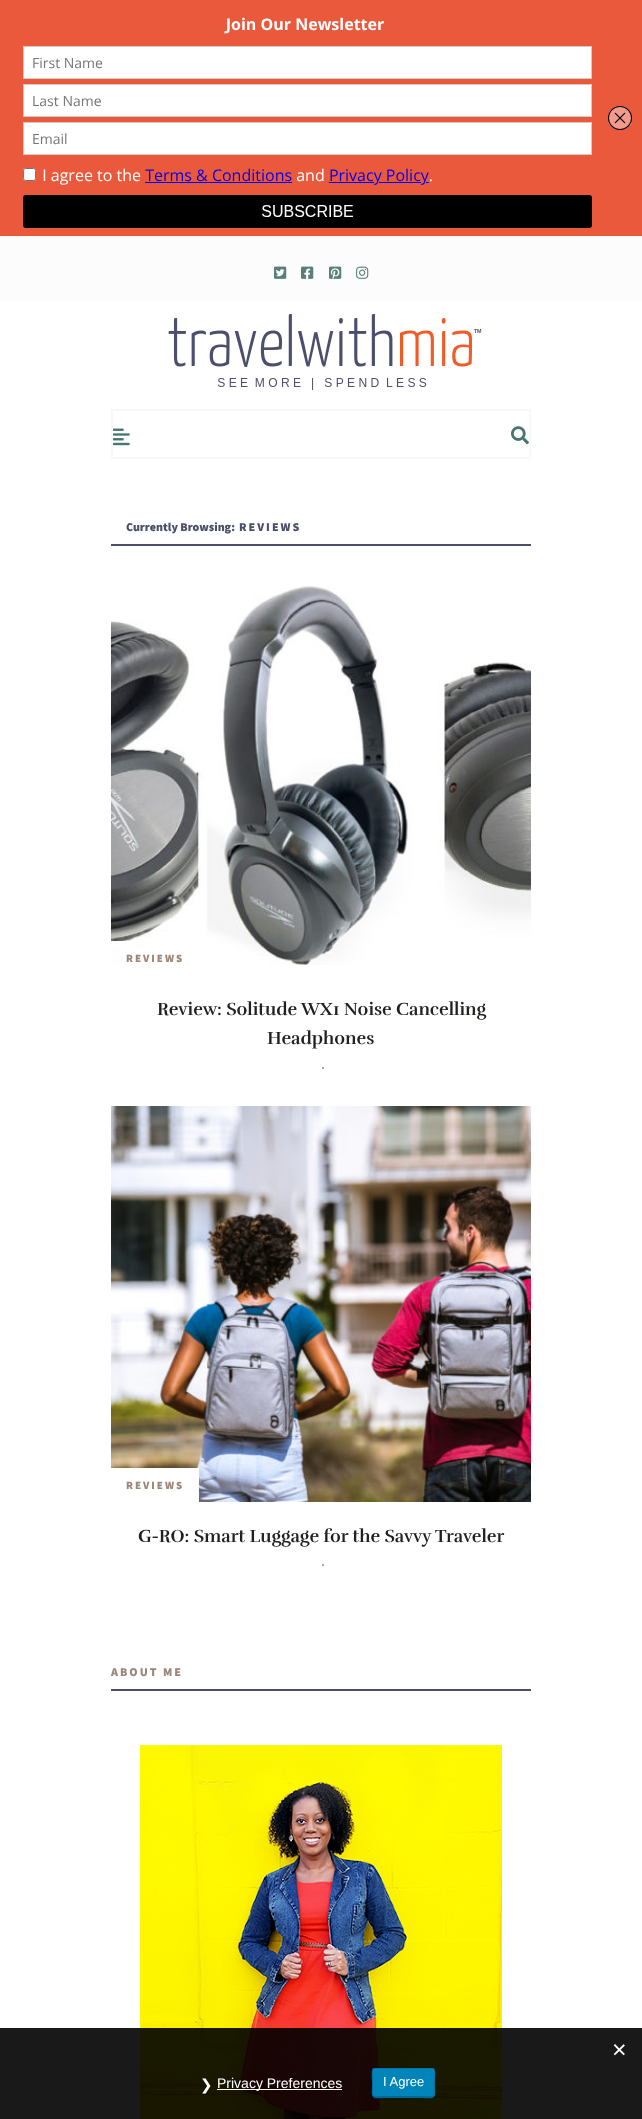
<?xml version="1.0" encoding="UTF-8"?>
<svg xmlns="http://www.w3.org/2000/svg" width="642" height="2119">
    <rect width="100%" height="100%" fill="#FFFFFF"/>
    <image x="0" y="0" width="642" height="236" href="img_01.png"/>
    <rect x="0" y="236" width="642" height="65" fill="#FCFCFC"/>
    <image x="274" y="266" width="13" height="13" href="img_02.png"/>
    <image x="301" y="266" width="13" height="13" href="img_03.png"/>
    <image x="329" y="266" width="13" height="13" href="img_04.png"/>
    <image x="356" y="266" width="13" height="13" href="img_05.png"/>
    <image x="168" y="314" width="314" height="76" href="img_06.png"/>
    <rect x="112" y="410" width="418" height="48" fill="none" stroke="#F8F8F8" stroke-width="2"/>
    <image x="113" y="428" width="17" height="18" href="img_07.png"/>
    <image x="511" y="426" width="18" height="19" href="img_08.png"/>
    <rect x="111" y="544" width="420" height="2" fill="#4B4E6D"/>
    <text x="126" y="531" font-family="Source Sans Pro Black" font-size="12" font-weight="900" fill="#4B4E6D">Currently Browsing:</text>
    <text x="239" y="531" font-family="Source Sans Pro Black" font-size="12" font-weight="900" letter-spacing="2" fill="#4B4E6D">REVIEWS</text>
    <image x="111" y="585" width="420" height="380" href="img_09.png"/>
    <rect x="111" y="941" width="25" height="7" fill="#FFFFFF"/>
    <text x="126" y="962" font-family="Source Sans Pro Black" font-size="11" font-weight="900" letter-spacing="2" fill="#9C8679">REVIEWS</text>
    <text x="157" y="1015" font-family="Rufina" font-size="18" font-weight="700" fill="#21201F">Review: Solitude WX1 Noise Cancelling</text>
    <text x="267" y="1044" font-family="Rufina" font-size="18" font-weight="700" fill="#21201F">Headphones</text>
    <rect x="322" y="1067" width="2" height="2" fill="#A6A6A6"/>
    <image x="111" y="1106" width="420" height="396" href="img_10.png"/>
    <rect x="111" y="1468" width="88" height="34" fill="#FFFFFF"/>
    <text x="126" y="1489" font-family="Source Sans Pro Black" font-size="11" font-weight="900" letter-spacing="2" fill="#9C8679">REVIEWS</text>
    <text x="138" y="1542" font-family="Rufina" font-size="18" font-weight="700" fill="#21201F">G-RO: Smart Luggage for the Savvy Traveler</text>
    <rect x="322" y="1564" width="2" height="2" fill="#A6A6A6"/>
    <rect x="111" y="1689" width="420" height="2" fill="#4B4E6D"/>
    <text x="111" y="1676" font-family="Source Sans Pro Black" font-size="12" font-weight="900" letter-spacing="2" fill="#9C8679">ABOUT ME</text>
    <image x="140" y="1745" width="362" height="374" href="img_11.png"/>
    <rect x="0" y="2028" width="642" height="91" fill="#000000" fill-opacity="0.9"/>
    <text x="612" y="2058" font-family="Liberation Sans" font-size="25" fill="#FFFFFF">×</text>
    <text x="200" y="2090" font-family="DejaVu Sans" font-size="15" fill="#FFFFFF">❯</text>
    <rect x="217" y="2089" width="125" height="1" fill="#FFFFFF"/>
    <text x="217" y="2088" font-family="Liberation Sans" font-size="14" fill="#FFFFFF">Privacy Preferences</text>
    <path d="M 372 2094 C 372 2100 380 2098 384 2098 H 422 C 427 2098 435 2100 435 2094 C 435 2096 434 2097 432 2097 H 375 C 373 2097 372 2096 372 2094 Z" fill="#006799"/>
    <rect x="372" y="2068" width="63" height="29" rx="3" fill="#0085BA"/>
    <path d="M 373 2069 L 375 2068.5 H 432 L 434 2069" fill="none" stroke="#0073AA"/>
    <path d="M 434 2069 C 435.5 2071 434.5 2080 434.5 2082.5 C 434.5 2098 437.5 2096.5 422.5 2096.5 H 384.5 C 369.5 2096.5 372.5 2098 372.5 2082.5 C 372.5 2080 371.5 2071 373 2069" fill="none" stroke="#006799"/>
    <text x="383" y="2086" font-family="Liberation Sans" font-size="13" fill="#FFFFFF">I Agree</text>
</svg>
